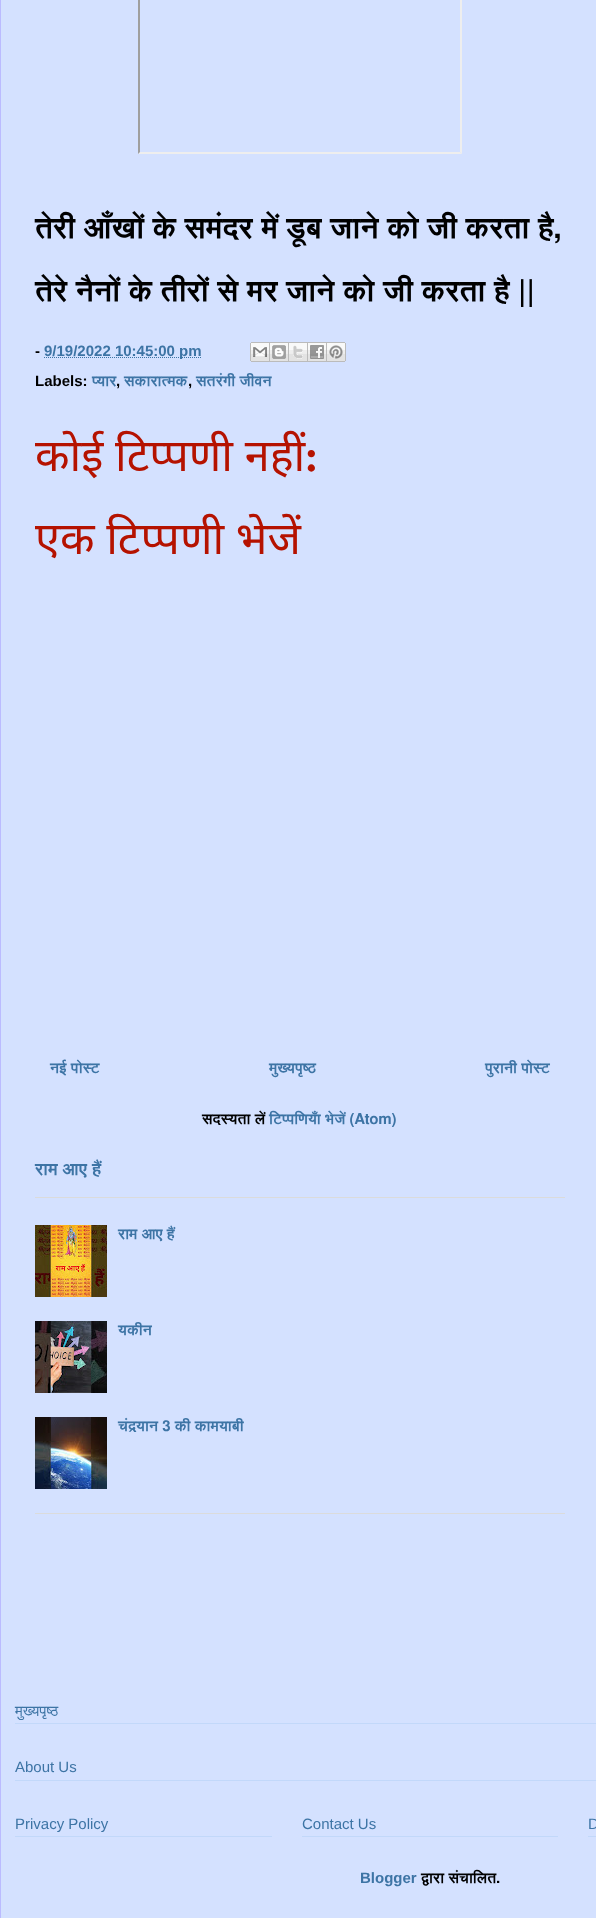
<?xml version="1.0" encoding="UTF-8"?>
<svg xmlns="http://www.w3.org/2000/svg" width="596" height="1918">
    <rect width="100%" height="100%" fill="#D4E1FF"/>
    <rect x="0" y="0" width="1" height="1918" fill="#BBBBFF"/>
    <path d="M 462 -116 V 154 L 460 152 V -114 Z" fill="#EEEEEE"/>
    <path d="M 462 154 H 138 L 140 152 H 460 Z" fill="#EEEEEE"/>
    <path d="M 138 154 V -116 L 140 -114 V 152 Z" fill="#9F9F9F"/>
    <text x="35" y="238" font-family="FreeSans" font-size="30" font-weight="600" fill="#000000">तेरी आँखों के समंदर में डूब जाने को जी करता है,</text>
    <text x="35" y="301" font-family="FreeSans" font-size="30" font-weight="600" fill="#000000">तेरे नैनों के तीरों से मर जाने को जी करता है ||</text>
    <text x="35" y="356" font-family="Liberation Sans" font-size="15" font-weight="700" fill="#000000">-</text>
    <path d="M 44 357.5 H 202" fill="none" stroke="#3D74A5" stroke-dasharray="1 1"/>
    <text x="44" y="356" font-family="Liberation Sans" font-size="15" font-weight="700" fill="#3D74A5">9/19/2022 10:45:00 pm</text>
    <image x="250" y="342" width="20" height="20" href="img_01.png"/>
    <image x="270" y="342" width="19" height="20" href="img_02.png"/>
    <image x="289" y="342" width="19" height="20" href="img_03.png"/>
    <image x="308" y="342" width="19" height="20" href="img_04.png"/>
    <image x="327" y="342" width="19" height="20" href="img_05.png"/>
    <text x="35" y="386" font-family="Liberation Sans" font-size="15" font-weight="700" fill="#000000">Labels:</text>
    <text x="92" y="386" font-family="FreeSans" font-size="15" font-weight="600" fill="#3D74A5">प्यार</text>
    <text x="116" y="386" font-family="Liberation Sans" font-size="15" font-weight="700" fill="#000000">,</text>
    <text x="124" y="386" font-family="FreeSans" font-size="15" font-weight="600" fill="#3D74A5">सकारात्मक</text>
    <text x="188" y="386" font-family="Liberation Sans" font-size="15" font-weight="700" fill="#000000">,</text>
    <text x="196" y="386" font-family="FreeSans" font-size="15" font-weight="600" fill="#3D74A5">सतरंगी जीवन</text>
    <text x="35" y="471" font-family="Noto Sans" font-size="45" fill="#B51200">कोई टिप्पणी नहीं</text>
    <text x="304" y="471" font-family="Liberation Serif" font-size="45" font-weight="700" fill="#B51200">:</text>
    <text x="35" y="554" font-family="Noto Sans" font-size="45" fill="#B51200">एक टिप्पणी भेजें</text>
    <text x="50" y="1073" font-family="FreeSans" font-size="15" font-weight="600" fill="#3D74A5">नई पोस्ट</text>
    <text x="269" y="1073" font-family="FreeSans" font-size="15" font-weight="600" fill="#3D74A5">मुख्यपृष्ठ</text>
    <text x="485" y="1073" font-family="FreeSans" font-size="15" font-weight="600" fill="#3D74A5">पुरानी पोस्ट</text>
    <text x="202" y="1124" font-family="FreeSans" font-size="15" font-weight="600" fill="#000000">सदस्यता लें</text>
    <text x="269" y="1124" font-family="FreeSans" font-size="15" font-weight="600" fill="#3D74A5">टिप्पणियाँ भेजें (Atom)</text>
    <rect x="35" y="1197" width="530" height="1" fill="#DBDBDB"/>
    <text x="35" y="1175" font-family="FreeSans" font-size="17.5" font-weight="600" fill="#3D74A5">राम आए हैं</text>
    <rect x="35" y="1513" width="530" height="1" fill="#DBDBDB"/>
    <image x="35" y="1225" width="72" height="72" href="img_06.png"/>
    <text x="118" y="1239" font-family="FreeSans" font-size="15" font-weight="600" fill="#3D74A5">राम आए हैं</text>
    <image x="35" y="1321" width="72" height="72" href="img_07.png"/>
    <text x="118" y="1335" font-family="FreeSans" font-size="15" font-weight="600" fill="#3D74A5">यकीन</text>
    <image x="35" y="1417" width="72" height="72" href="img_08.png"/>
    <text x="118" y="1431" font-family="FreeSans" font-size="15" font-weight="600" fill="#3D74A5">चंद्रयान 3 की कामयाबी</text>
    <rect x="15" y="1723" width="581" height="1" fill="#C2D8FA"/>
    <text x="15" y="1716" font-family="FreeSans" font-size="15" fill="#3D74A5">मुख्यपृष्ठ</text>
    <rect x="15" y="1780" width="581" height="1" fill="#C2D8FA"/>
    <text x="15" y="1772" font-family="Liberation Sans" font-size="15" fill="#3D74A5">About Us</text>
    <rect x="15" y="1836" width="257" height="1" fill="#C2D8FA"/>
    <text x="15" y="1829" font-family="Liberation Sans" font-size="15" fill="#3D74A5">Privacy Policy</text>
    <rect x="302" y="1836" width="256" height="1" fill="#C2D8FA"/>
    <text x="302" y="1829" font-family="Liberation Sans" font-size="15" fill="#3D74A5">Contact Us</text>
    <rect x="588" y="1836" width="8" height="1" fill="#C2D8FA"/>
    <text x="588" y="1829" font-family="Liberation Sans" font-size="15" fill="#3D74A5">D</text>
    <text x="360" y="1883" font-family="Liberation Sans" font-size="15" font-weight="700" fill="#3D74A5">Blogger</text>
    <text x="421" y="1883" font-family="FreeSans" font-size="15" font-weight="600" fill="#000000">द्वारा संचालित.</text>
</svg>
